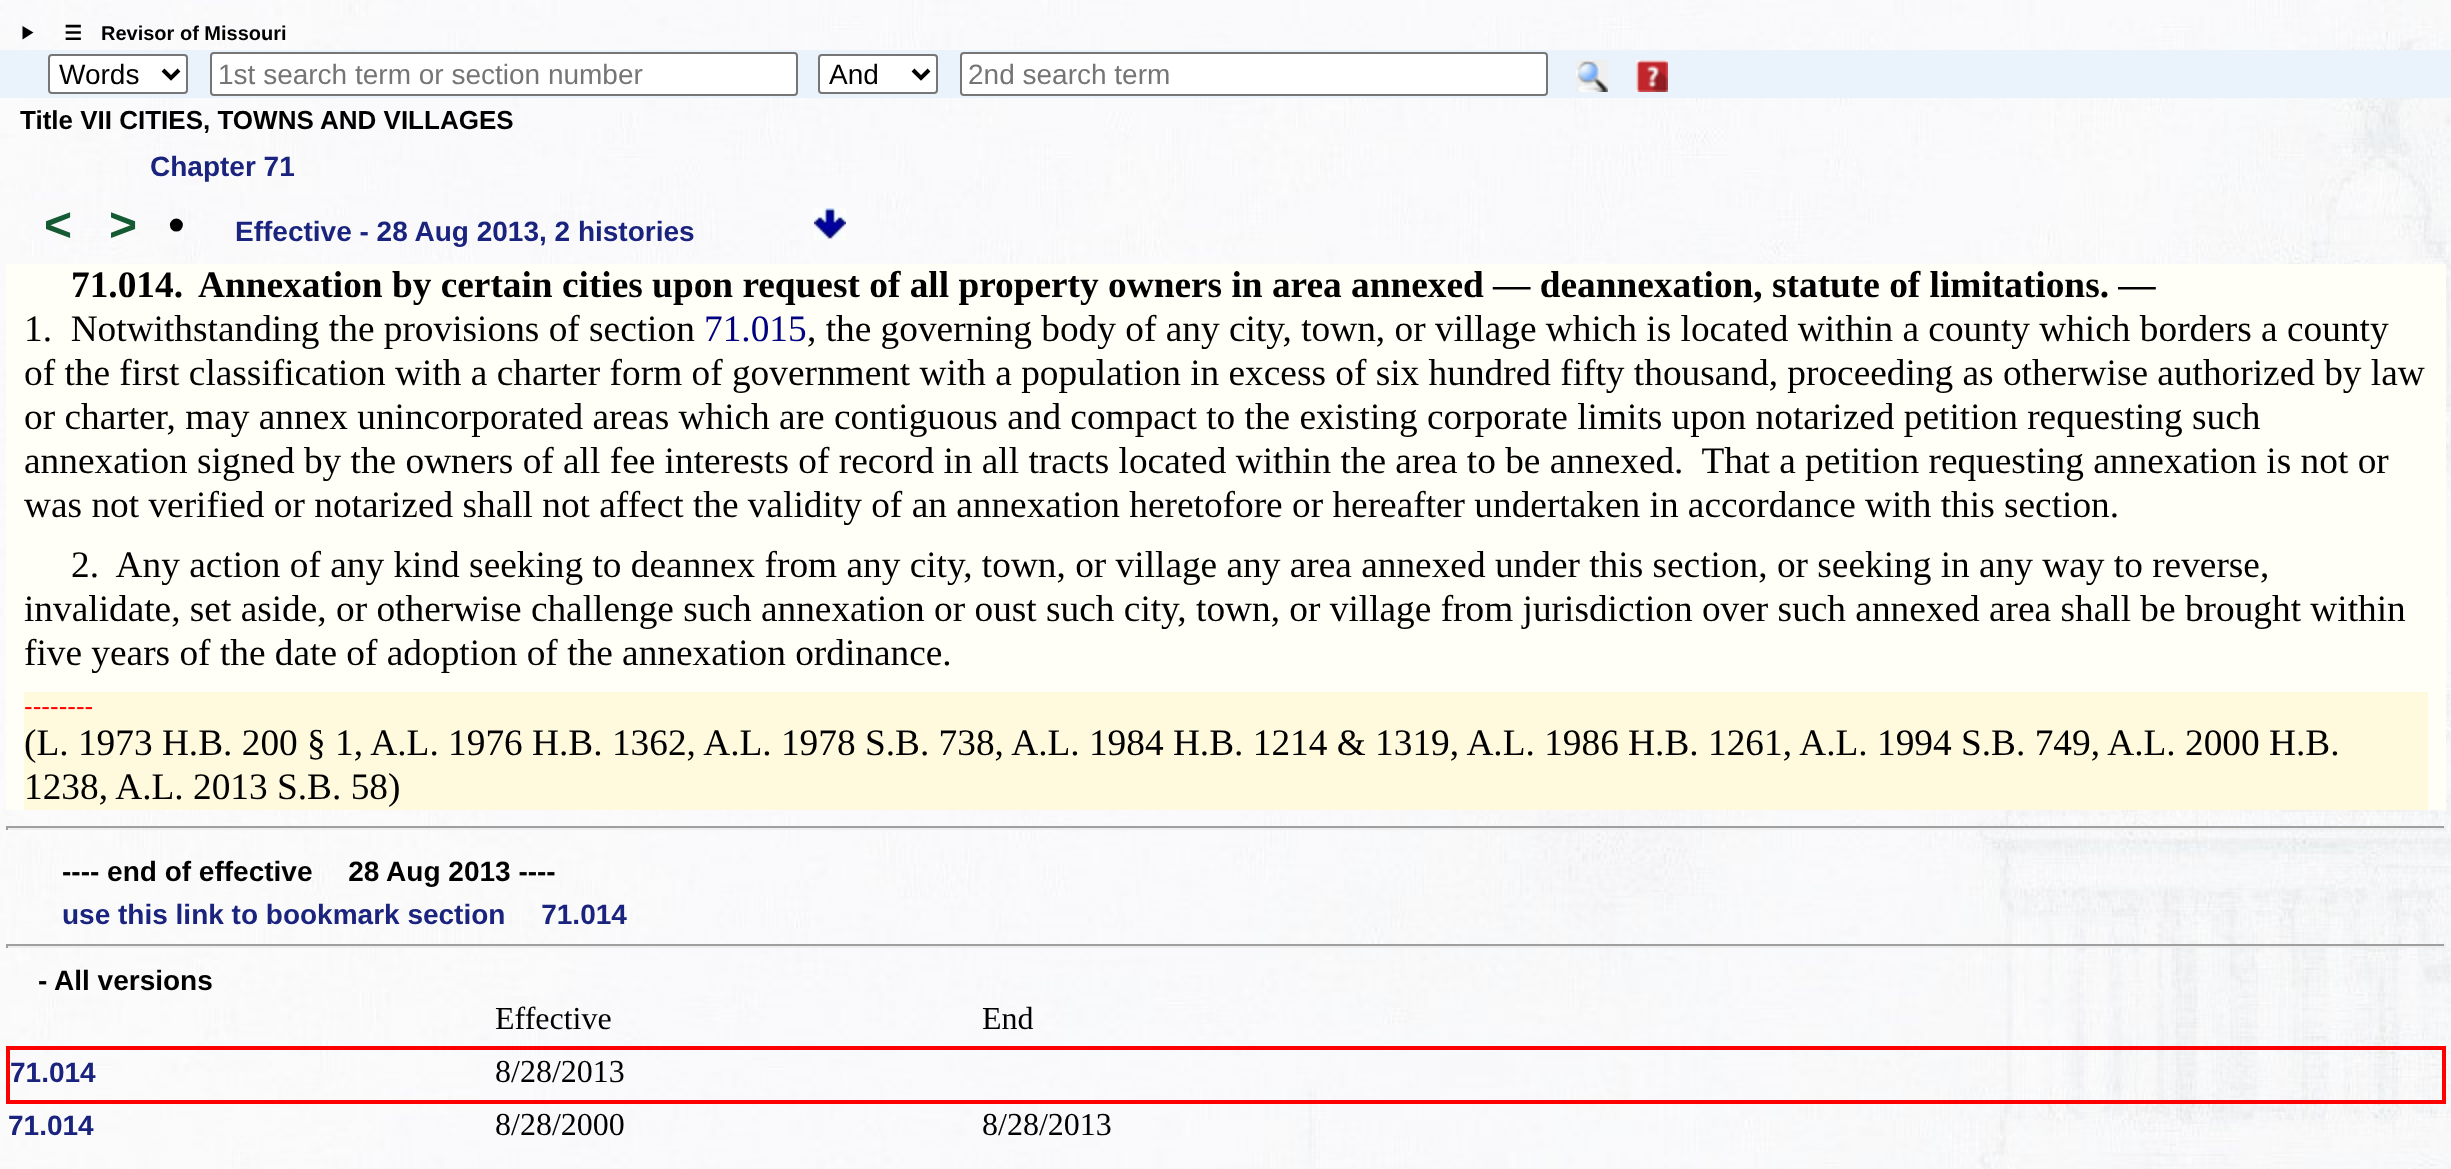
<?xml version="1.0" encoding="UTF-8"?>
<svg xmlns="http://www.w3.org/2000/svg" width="2451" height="1169">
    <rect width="100%" height="100%" fill="#FFFFFF"/>
    <image x="0" y="0" width="2451" height="1169" href="img_01.png"/>
    <path d="M 22.5 26 L 33.5 32.5 L 22.5 39.5 Z" fill="#000000"/>
    <text x="64" y="40" font-family="DejaVu Sans" font-size="20" font-weight="700" fill="#000000">☰</text>
    <text x="101" y="40" font-family="Liberation Sans" font-size="20" font-weight="700" fill="#000000">Revisor of Missouri</text>
    <rect x="0" y="50" width="2451" height="48" fill="#EAF3FB"/>
    <rect x="49" y="55" width="138" height="38" rx="3" fill="#FFFFFF" stroke="#767676" stroke-width="2"/>
    <path d="M 163 70 L 171 78 L 179 70" fill="none" stroke="#000000" stroke-width="4"/>
    <text x="59" y="84" font-family="Liberation Sans" font-size="28" fill="#000000">Words</text>
    <rect x="211" y="53" width="586" height="42" rx="3" fill="#FFFFFF" stroke="#767676" stroke-width="2"/>
    <text x="218" y="84" font-family="Liberation Sans" font-size="28" fill="#757575">1st search term or section number</text>
    <rect x="819" y="55" width="118" height="38" rx="3" fill="#FFFFFF" stroke="#767676" stroke-width="2"/>
    <path d="M 913 70 L 921 78 L 929 70" fill="none" stroke="#000000" stroke-width="4"/>
    <text x="829" y="84" font-family="Liberation Sans" font-size="28" fill="#000000">And</text>
    <rect x="961" y="53" width="586" height="42" rx="3" fill="#FFFFFF" stroke="#767676" stroke-width="2"/>
    <text x="968" y="84" font-family="Liberation Sans" font-size="28" fill="#757575">2nd search term</text>
    <image x="1576" y="60" width="32" height="32" href="img_02.png"/>
    <image x="1636" y="60" width="32" height="32" href="img_03.png"/>
    <text x="20" y="129" font-family="Liberation Sans" font-size="26" font-weight="700" fill="#000000">Title VII CITIES, TOWNS AND VILLAGES</text>
    <text x="150" y="176" font-family="Liberation Sans" font-size="28" font-weight="700" fill="#1A237E">Chapter 71</text>
    <text x="44" y="241" font-family="Liberation Sans" font-size="48" font-weight="700" fill="#145A32">&lt;</text>
    <text x="109" y="241" font-family="Liberation Sans" font-size="48" font-weight="700" fill="#145A32">&gt;</text>
    <text x="168" y="241" font-family="Liberation Sans" font-size="48" fill="#000000">•</text>
    <text x="235" y="241" font-family="Liberation Sans" font-size="28" font-weight="700" fill="#1A237E">Effective - 28 Aug 2013, 2 histories</text>
    <image x="814" y="208" width="32" height="32" href="img_04.png"/>
    <rect x="6" y="264" width="2440" height="546" fill="#FFFFF7"/>
    <text x="71" y="297" font-family="Liberation Serif" font-size="37.33" font-weight="700" fill="#000000">71.014.</text>
    <text x="198" y="297" font-family="Liberation Serif" font-size="37.33" font-weight="700" fill="#000000">Annexation by certain cities upon request of all property owners in area annexed — deannexation, statute of limitations. —</text>
    <text x="24" y="341" font-family="Liberation Serif" font-size="37.33" fill="#000000" xml:space="preserve">1.  Notwithstanding the provisions of section</text>
    <text x="704" y="341" font-family="Liberation Serif" font-size="37.33" fill="#000080">71.015</text>
    <text x="807" y="341" font-family="Liberation Serif" font-size="37.33" fill="#000000">, the governing body of any city, town, or village which is located within a county which borders a county</text>
    <text font-family="Liberation Serif" font-size="37.33" fill="#000000" xml:space="preserve"><tspan x="24" y="385">of the first classification with a charter form of government with a population in excess of six hundred fifty thousand, proceeding as otherwise authorized by law</tspan><tspan x="24" y="429">or charter, may annex unincorporated areas which are contiguous and compact to the existing corporate limits upon notarized petition requesting such</tspan><tspan x="24" y="473">annexation signed by the owners of all fee interests of record in all tracts located within the area to be annexed.  That a petition requesting annexation is not or</tspan><tspan x="24" y="517">was not verified or notarized shall not affect the validity of an annexation heretofore or hereafter undertaken in accordance with this section.</tspan></text>
    <text x="71" y="577" font-family="Liberation Serif" font-size="37.33" fill="#000000" xml:space="preserve">2.  Any action of any kind seeking to deannex from any city, town, or village any area annexed under this section, or seeking in any way to reverse,</text>
    <text font-family="Liberation Serif" font-size="37.33" fill="#000000">
        <tspan x="24" y="621">invalidate, set aside, or otherwise challenge such annexation or oust such city, town, or village from jurisdiction over such annexed area shall be brought within</tspan>
        <tspan x="24" y="665">five years of the date of adoption of the annexation ordinance.</tspan>
    </text>
    <rect x="24" y="692" width="2404" height="118" fill="#FFFADE"/>
    <text x="24" y="715" font-family="Liberation Sans" font-size="26" fill="#FF0000">--------</text>
    <text font-family="Liberation Serif" font-size="37.33" fill="#000000">
        <tspan x="24" y="755">(L. 1973 H.B. 200 § 1, A.L. 1976 H.B. 1362, A.L. 1978 S.B. 738, A.L. 1984 H.B. 1214 &amp; 1319, A.L. 1986 H.B. 1261, A.L. 1994 S.B. 749, A.L. 2000 H.B.</tspan>
        <tspan x="24" y="799">1238, A.L. 2013 S.B. 58)</tspan>
    </text>
    <rect x="6" y="826" width="2440" height="2" fill="#9F9F9F"/>
    <rect x="2444" y="826" width="2" height="4" fill="#EEEEEE"/>
    <rect x="6" y="828" width="2440" height="2" fill="#EEEEEE"/>
    <rect x="6" y="826" width="2" height="4" fill="#9F9F9F"/>
    <text x="62" y="881" font-family="Liberation Sans" font-size="28" font-weight="700" fill="#000000">---- end of effective  28 Aug 2013 ----</text>
    <text x="62" y="924" font-family="Liberation Sans" font-size="28" font-weight="700" fill="#1A237E">use this link to bookmark section  71.014</text>
    <rect x="6" y="944" width="2440" height="2" fill="#9F9F9F"/>
    <rect x="2444" y="944" width="2" height="4" fill="#EEEEEE"/>
    <rect x="6" y="946" width="2440" height="2" fill="#EEEEEE"/>
    <rect x="6" y="944" width="2" height="4" fill="#9F9F9F"/>
    <text x="38" y="990" font-family="Liberation Sans" font-size="28" font-weight="700" fill="#000000">- All versions</text>
    <text x="495" y="1029" font-family="Liberation Serif" font-size="32" fill="#000000">Effective</text>
    <text x="982" y="1029" font-family="Liberation Serif" font-size="32" fill="#000000">End</text>
    <rect x="6" y="1046" width="2440" height="4" fill="#FF0000"/>
    <rect x="2442" y="1046" width="4" height="58" fill="#FF0000"/>
    <rect x="6" y="1100" width="2440" height="4" fill="#FF0000"/>
    <rect x="6" y="1046" width="4" height="58" fill="#FF0000"/>
    <text x="10" y="1082" font-family="Liberation Sans" font-size="28" font-weight="700" fill="#1A237E">71.014</text>
    <text x="495" y="1082" font-family="Liberation Serif" font-size="32" fill="#000000">8/28/2013</text>
    <text x="8" y="1135" font-family="Liberation Sans" font-size="28" font-weight="700" fill="#1A237E">71.014</text>
    <text x="495" y="1135" font-family="Liberation Serif" font-size="32" fill="#000000">8/28/2000</text>
    <text x="982" y="1135" font-family="Liberation Serif" font-size="32" fill="#000000">8/28/2013</text>
</svg>
